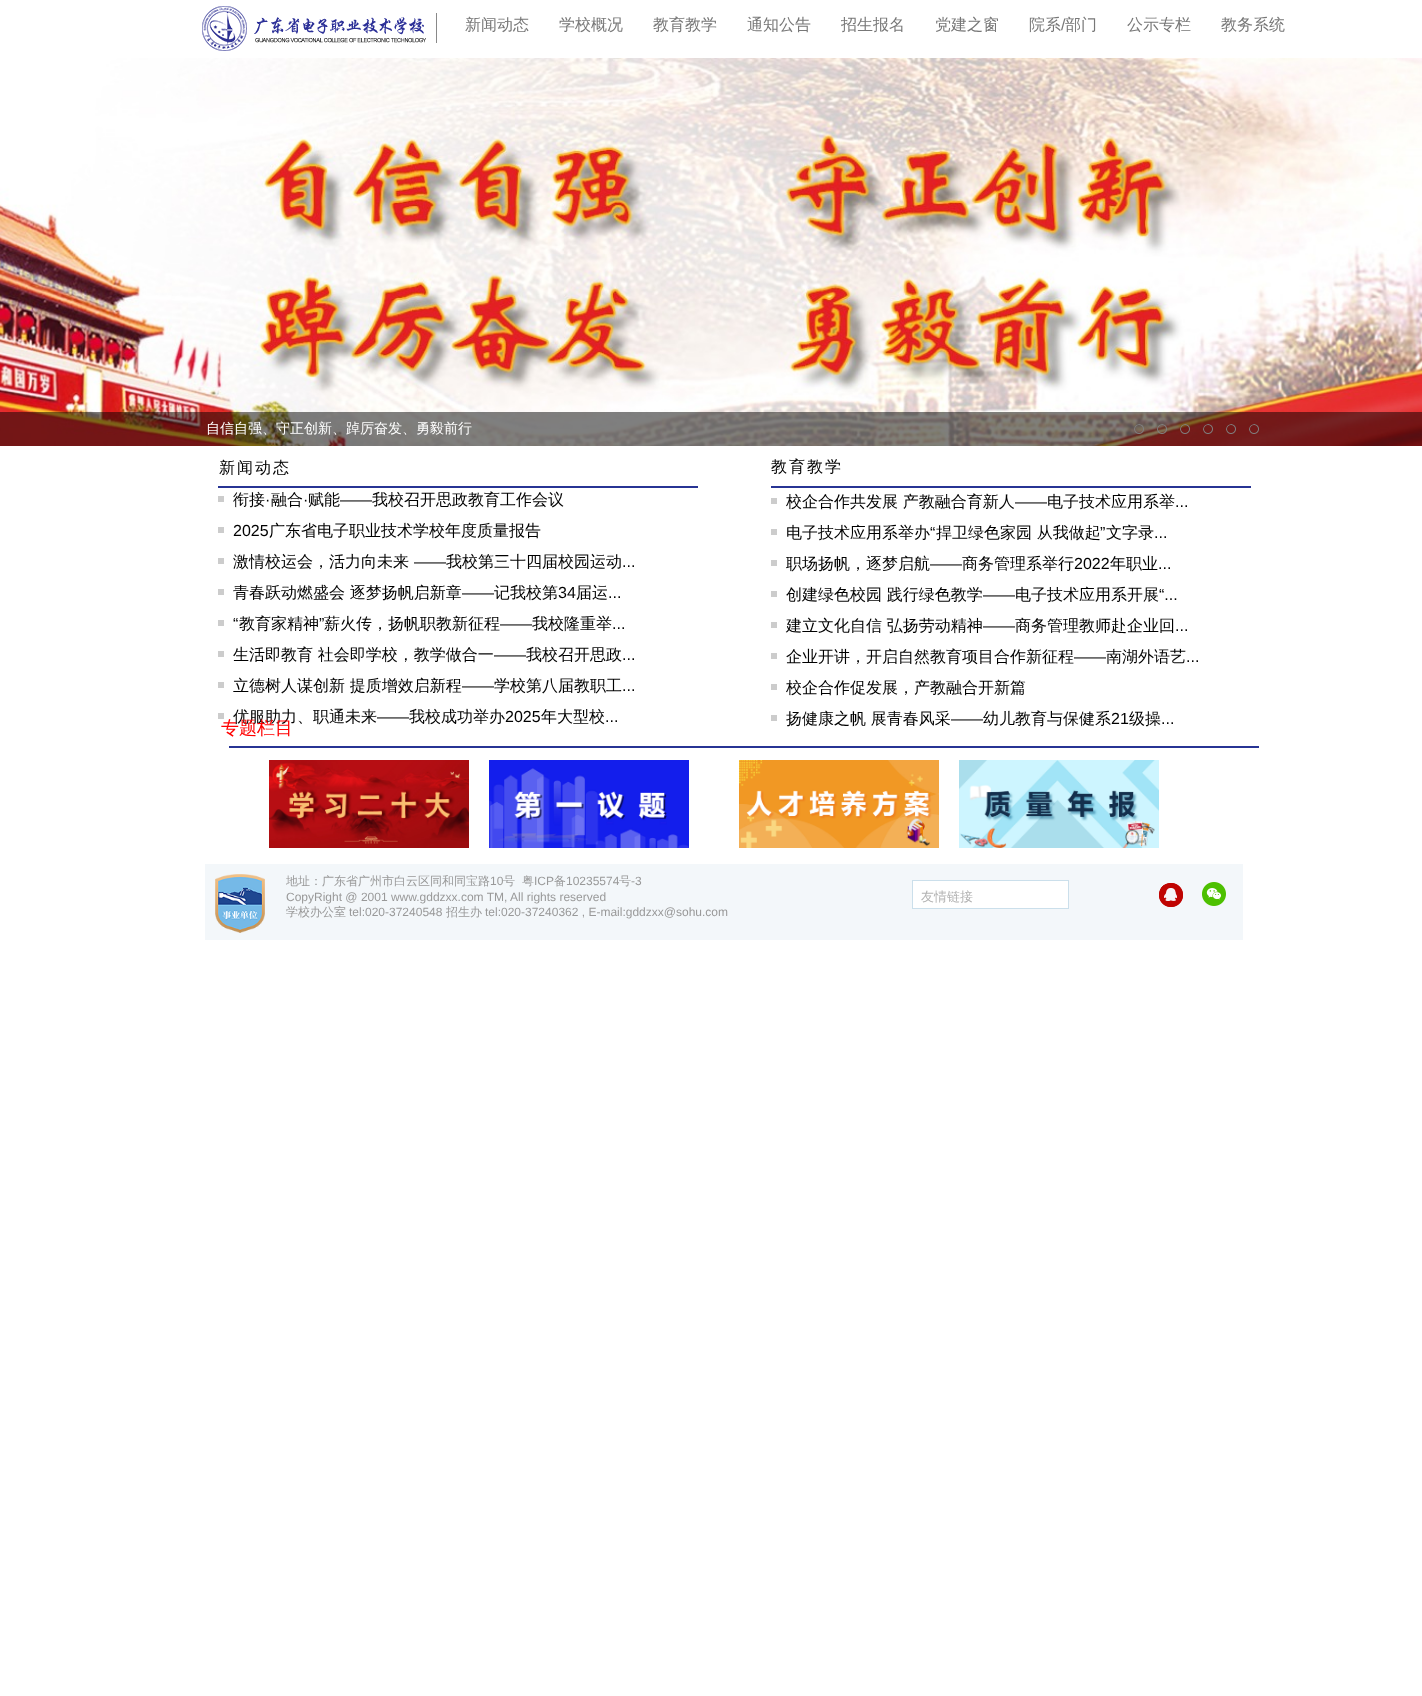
<?xml version="1.0" encoding="UTF-8"?>
<svg xmlns="http://www.w3.org/2000/svg" width="1422" height="1696">
    <rect width="100%" height="100%" fill="#FFFFFF"/>
    <image x="202" y="6" width="235" height="45" href="img_01.png"/>
    <text x="465" y="30" font-family="WenQuanYi Zen Hei" font-size="16" font-weight="500" fill="#777777">新闻动态</text>
    <text x="559" y="30" font-family="WenQuanYi Zen Hei" font-size="16" font-weight="500" fill="#777777">学校概况</text>
    <text x="653" y="30" font-family="WenQuanYi Zen Hei" font-size="16" font-weight="500" fill="#777777">教育教学</text>
    <text x="747" y="30" font-family="WenQuanYi Zen Hei" font-size="16" font-weight="500" fill="#777777">通知公告</text>
    <text x="841" y="30" font-family="WenQuanYi Zen Hei" font-size="16" font-weight="500" fill="#777777">招生报名</text>
    <text x="935" y="30" font-family="WenQuanYi Zen Hei" font-size="16" font-weight="500" fill="#777777">党建之窗</text>
    <text x="1029" y="30" font-family="WenQuanYi Zen Hei" font-size="16" font-weight="500" fill="#777777">院系</text>
    <text x="1061" y="30" font-family="Liberation Sans" font-size="16" fill="#777777">/</text>
    <text x="1065" y="30" font-family="WenQuanYi Zen Hei" font-size="16" font-weight="500" fill="#777777">部门</text>
    <text x="1127" y="30" font-family="WenQuanYi Zen Hei" font-size="16" font-weight="500" fill="#777777">公示专栏</text>
    <text x="1221" y="30" font-family="WenQuanYi Zen Hei" font-size="16" font-weight="500" fill="#777777">教务系统</text>
    <image x="0" y="58" width="1422" height="388" href="img_02.png"/>
    <rect x="0" y="412" width="1422" height="34" fill="#000000" fill-opacity="0.5"/>
    <text x="206" y="433" font-family="WenQuanYi Zen Hei" font-size="14" font-weight="500" fill="#FFFFFF">自信自强、守正创新、踔厉奋发、勇毅前行</text>
    <image x="1134" y="424" width="10" height="10" href="img_03.png"/>
    <image x="1157" y="424" width="10" height="10" href="img_04.png"/>
    <image x="1180" y="424" width="10" height="10" href="img_05.png"/>
    <image x="1203" y="424" width="10" height="10" href="img_06.png"/>
    <image x="1226" y="424" width="10" height="10" href="img_07.png"/>
    <image x="1249" y="424" width="10" height="10" href="img_08.png"/>
    <text x="219" y="473" font-family="WenQuanYi Zen Hei" font-size="16" font-weight="500" letter-spacing="2" fill="#000000">新闻动态</text>
    <text x="771" y="472" font-family="WenQuanYi Zen Hei" font-size="16" font-weight="500" letter-spacing="2" fill="#000000">教育教学</text>
    <rect x="218" y="486" width="480" height="2" fill="#273494"/>
    <rect x="771" y="486" width="480" height="2" fill="#273494"/>
    <rect x="218" y="496" width="6" height="6" fill="#CCCCCC"/>
    <text x="233" y="505" font-family="WenQuanYi Zen Hei" font-size="16" font-weight="500" fill="#000000">衔接</text>
    <text x="265" y="505" font-family="Liberation Sans" font-size="16" fill="#000000">·</text>
    <text x="271" y="505" font-family="WenQuanYi Zen Hei" font-size="16" font-weight="500" fill="#000000">融合</text>
    <text x="303" y="505" font-family="Liberation Sans" font-size="16" fill="#000000">·</text>
    <text x="308" y="505" font-family="WenQuanYi Zen Hei" font-size="16" font-weight="500" fill="#000000">赋能</text>
    <text x="340" y="505" font-family="Liberation Sans" font-size="16" fill="#000000">——</text>
    <text x="372" y="505" font-family="WenQuanYi Zen Hei" font-size="16" font-weight="500" fill="#000000">我校召开思政教育工作会议</text>
    <rect x="218" y="527" width="6" height="6" fill="#CCCCCC"/>
    <text x="233" y="536" font-family="Liberation Sans" font-size="16" fill="#000000">2025</text>
    <text x="269" y="536" font-family="WenQuanYi Zen Hei" font-size="16" font-weight="500" fill="#000000">广东省电子职业技术学校年度质量报告</text>
    <rect x="218" y="558" width="6" height="6" fill="#CCCCCC"/>
    <text x="233" y="567" font-family="WenQuanYi Zen Hei" font-size="16" font-weight="500" fill="#000000">激情校运会，活力向未来</text>
    <text x="414" y="567" font-family="Liberation Sans" font-size="16" fill="#000000">——</text>
    <text x="446" y="567" font-family="WenQuanYi Zen Hei" font-size="16" font-weight="500" fill="#000000">我校第三十四届校园运动</text>
    <text x="622" y="567" font-family="Liberation Sans" font-size="16" fill="#000000">...</text>
    <rect x="218" y="589" width="6" height="6" fill="#CCCCCC"/>
    <text x="233" y="598" font-family="WenQuanYi Zen Hei" font-size="16" font-weight="500" fill="#000000">青春跃动燃盛会 逐梦扬帆启新章</text>
    <text x="462" y="598" font-family="Liberation Sans" font-size="16" fill="#000000">——</text>
    <text x="494" y="598" font-family="WenQuanYi Zen Hei" font-size="16" font-weight="500" fill="#000000">记我校第</text>
    <text x="558" y="598" font-family="Liberation Sans" font-size="16" fill="#000000">34</text>
    <text x="576" y="598" font-family="WenQuanYi Zen Hei" font-size="16" font-weight="500" fill="#000000">届运</text>
    <text x="608" y="598" font-family="Liberation Sans" font-size="16" fill="#000000">...</text>
    <rect x="218" y="620" width="6" height="6" fill="#CCCCCC"/>
    <text x="233" y="629" font-family="Liberation Sans" font-size="16" fill="#000000">“</text>
    <text x="239" y="629" font-family="WenQuanYi Zen Hei" font-size="16" font-weight="500" fill="#000000">教育家精神</text>
    <text x="319" y="629" font-family="Liberation Sans" font-size="16" fill="#000000">”</text>
    <text x="324" y="629" font-family="WenQuanYi Zen Hei" font-size="16" font-weight="500" fill="#000000">薪火传，扬帆职教新征程</text>
    <text x="500" y="629" font-family="Liberation Sans" font-size="16" fill="#000000">——</text>
    <text x="532" y="629" font-family="WenQuanYi Zen Hei" font-size="16" font-weight="500" fill="#000000">我校隆重举</text>
    <text x="612" y="629" font-family="Liberation Sans" font-size="16" fill="#000000">...</text>
    <rect x="218" y="651" width="6" height="6" fill="#CCCCCC"/>
    <text x="233" y="660" font-family="WenQuanYi Zen Hei" font-size="16" font-weight="500" fill="#000000">生活即教育 社会即学校，教学做合一</text>
    <text x="494" y="660" font-family="Liberation Sans" font-size="16" fill="#000000">——</text>
    <text x="526" y="660" font-family="WenQuanYi Zen Hei" font-size="16" font-weight="500" fill="#000000">我校召开思政</text>
    <text x="622" y="660" font-family="Liberation Sans" font-size="16" fill="#000000">...</text>
    <rect x="218" y="682" width="6" height="6" fill="#CCCCCC"/>
    <text x="233" y="691" font-family="WenQuanYi Zen Hei" font-size="16" font-weight="500" fill="#000000">立德树人谋创新 提质增效启新程</text>
    <text x="462" y="691" font-family="Liberation Sans" font-size="16" fill="#000000">——</text>
    <text x="494" y="691" font-family="WenQuanYi Zen Hei" font-size="16" font-weight="500" fill="#000000">学校第八届教职工</text>
    <text x="622" y="691" font-family="Liberation Sans" font-size="16" fill="#000000">...</text>
    <rect x="218" y="713" width="6" height="6" fill="#CCCCCC"/>
    <text x="233" y="722" font-family="WenQuanYi Zen Hei" font-size="16" font-weight="500" fill="#000000">优服助力、职通未来</text>
    <text x="377" y="722" font-family="Liberation Sans" font-size="16" fill="#000000">——</text>
    <text x="409" y="722" font-family="WenQuanYi Zen Hei" font-size="16" font-weight="500" fill="#000000">我校成功举办</text>
    <text x="505" y="722" font-family="Liberation Sans" font-size="16" fill="#000000">2025</text>
    <text x="541" y="722" font-family="WenQuanYi Zen Hei" font-size="16" font-weight="500" fill="#000000">年大型校</text>
    <text x="605" y="722" font-family="Liberation Sans" font-size="16" fill="#000000">...</text>
    <rect x="771" y="498" width="6" height="6" fill="#CCCCCC"/>
    <text x="786" y="507" font-family="WenQuanYi Zen Hei" font-size="16" font-weight="500" fill="#000000">校企合作共发展 产教融合育新人</text>
    <text x="1015" y="507" font-family="Liberation Sans" font-size="16" fill="#000000">——</text>
    <text x="1047" y="507" font-family="WenQuanYi Zen Hei" font-size="16" font-weight="500" fill="#000000">电子技术应用系举</text>
    <text x="1175" y="507" font-family="Liberation Sans" font-size="16" fill="#000000">...</text>
    <rect x="771" y="529" width="6" height="6" fill="#CCCCCC"/>
    <text x="786" y="538" font-family="WenQuanYi Zen Hei" font-size="16" font-weight="500" fill="#000000">电子技术应用系举办</text>
    <text x="930" y="538" font-family="Liberation Sans" font-size="16" fill="#000000">“</text>
    <text x="936" y="538" font-family="WenQuanYi Zen Hei" font-size="16" font-weight="500" fill="#000000">捍卫绿色家园 从我做起</text>
    <text x="1100" y="538" font-family="Liberation Sans" font-size="16" fill="#000000">”</text>
    <text x="1106" y="538" font-family="WenQuanYi Zen Hei" font-size="16" font-weight="500" fill="#000000">文字录</text>
    <text x="1154" y="538" font-family="Liberation Sans" font-size="16" fill="#000000">...</text>
    <rect x="771" y="560" width="6" height="6" fill="#CCCCCC"/>
    <text x="786" y="569" font-family="WenQuanYi Zen Hei" font-size="16" font-weight="500" fill="#000000">职场扬帆，逐梦启航</text>
    <text x="930" y="569" font-family="Liberation Sans" font-size="16" fill="#000000">——</text>
    <text x="962" y="569" font-family="WenQuanYi Zen Hei" font-size="16" font-weight="500" fill="#000000">商务管理系举行</text>
    <text x="1074" y="569" font-family="Liberation Sans" font-size="16" fill="#000000">2022</text>
    <text x="1110" y="569" font-family="WenQuanYi Zen Hei" font-size="16" font-weight="500" fill="#000000">年职业</text>
    <text x="1158" y="569" font-family="Liberation Sans" font-size="16" fill="#000000">...</text>
    <rect x="771" y="591" width="6" height="6" fill="#CCCCCC"/>
    <text x="786" y="600" font-family="WenQuanYi Zen Hei" font-size="16" font-weight="500" fill="#000000">创建绿色校园 践行绿色教学</text>
    <text x="983" y="600" font-family="Liberation Sans" font-size="16" fill="#000000">——</text>
    <text x="1015" y="600" font-family="WenQuanYi Zen Hei" font-size="16" font-weight="500" fill="#000000">电子技术应用系开展</text>
    <text x="1159" y="600" font-family="Liberation Sans" font-size="16" fill="#000000">“...</text>
    <rect x="771" y="622" width="6" height="6" fill="#CCCCCC"/>
    <text x="786" y="631" font-family="WenQuanYi Zen Hei" font-size="16" font-weight="500" fill="#000000">建立文化自信 弘扬劳动精神</text>
    <text x="983" y="631" font-family="Liberation Sans" font-size="16" fill="#000000">——</text>
    <text x="1015" y="631" font-family="WenQuanYi Zen Hei" font-size="16" font-weight="500" fill="#000000">商务管理教师赴企业回</text>
    <text x="1175" y="631" font-family="Liberation Sans" font-size="16" fill="#000000">...</text>
    <rect x="771" y="653" width="6" height="6" fill="#CCCCCC"/>
    <text x="786" y="662" font-family="WenQuanYi Zen Hei" font-size="16" font-weight="500" fill="#000000">企业开讲，开启自然教育项目合作新征程</text>
    <text x="1074" y="662" font-family="Liberation Sans" font-size="16" fill="#000000">——</text>
    <text x="1106" y="662" font-family="WenQuanYi Zen Hei" font-size="16" font-weight="500" fill="#000000">南湖外语艺</text>
    <text x="1186" y="662" font-family="Liberation Sans" font-size="16" fill="#000000">...</text>
    <rect x="771" y="684" width="6" height="6" fill="#CCCCCC"/>
    <text x="786" y="693" font-family="WenQuanYi Zen Hei" font-size="16" font-weight="500" fill="#000000">校企合作促发展，产教融合开新篇</text>
    <rect x="771" y="715" width="6" height="6" fill="#CCCCCC"/>
    <text x="786" y="724" font-family="WenQuanYi Zen Hei" font-size="16" font-weight="500" fill="#000000">扬健康之帆 展青春风采</text>
    <text x="951" y="724" font-family="Liberation Sans" font-size="16" fill="#000000">——</text>
    <text x="983" y="724" font-family="WenQuanYi Zen Hei" font-size="16" font-weight="500" fill="#000000">幼儿教育与保健系</text>
    <text x="1111" y="724" font-family="Liberation Sans" font-size="16" fill="#000000">21</text>
    <text x="1129" y="724" font-family="WenQuanYi Zen Hei" font-size="16" font-weight="500" fill="#000000">级操</text>
    <text x="1161" y="724" font-family="Liberation Sans" font-size="16" fill="#000000">...</text>
    <text x="221" y="734" font-family="WenQuanYi Zen Hei" font-size="18" font-weight="500" fill="#FF0000">专题栏目</text>
    <rect x="229" y="746" width="1030" height="2" fill="#273494"/>
    <image x="269" y="760" width="200" height="88" href="img_09.png"/>
    <image x="489" y="760" width="200" height="88" href="img_10.png"/>
    <image x="739" y="760" width="200" height="88" href="img_11.png"/>
    <image x="959" y="760" width="200" height="88" href="img_12.png"/>
    <rect x="205" y="864" width="1038" height="76" fill="#F3F7FA"/>
    <image x="215" y="874" width="50" height="59" href="img_13.png"/>
    <text x="286" y="885" font-family="WenQuanYi Zen Hei" font-size="12" font-weight="500" fill="#999999">地址：广东省广州市白云区同和同宝路</text>
    <text x="490" y="885" font-family="Liberation Sans" font-size="12" fill="#999999">10</text>
    <text x="503" y="885" font-family="WenQuanYi Zen Hei" font-size="12" font-weight="500" fill="#999999">号</text>
    <text x="522" y="885" font-family="WenQuanYi Zen Hei" font-size="12" font-weight="500" fill="#999999">粤</text>
    <text x="534" y="885" font-family="Liberation Sans" font-size="12" fill="#999999">ICP</text>
    <text x="554" y="885" font-family="WenQuanYi Zen Hei" font-size="12" font-weight="500" fill="#999999">备</text>
    <text x="566" y="885" font-family="Liberation Sans" font-size="12" fill="#999999">10235574</text>
    <text x="619" y="885" font-family="WenQuanYi Zen Hei" font-size="12" font-weight="500" fill="#999999">号</text>
    <text x="631" y="885" font-family="Liberation Sans" font-size="12" fill="#999999">-3</text>
    <text x="286" y="901" font-family="Liberation Sans" font-size="12" fill="#999999">CopyRight @ 2001 www.gddzxx.com TM, All rights reserved</text>
    <text x="286" y="916" font-family="WenQuanYi Zen Hei" font-size="12" font-weight="500" fill="#999999">学校办公室</text>
    <text x="349" y="916" font-family="Liberation Sans" font-size="12" fill="#999999">tel:020-37240548</text>
    <text x="446" y="916" font-family="WenQuanYi Zen Hei" font-size="12" font-weight="500" fill="#999999">招生办</text>
    <text x="485" y="916" font-family="Liberation Sans" font-size="12" fill="#999999">tel:020-37240362 , E-mail:gddzxx@sohu.com</text>
    <rect x="912.5" y="880.5" width="156" height="28" fill="#FFFFFF" stroke="#CBDFEB"/>
    <text x="921" y="901" font-family="WenQuanYi Zen Hei" font-size="13" font-weight="500" fill="#B3B3B3">友情链接</text>
    <image x="1159" y="883" width="24" height="24" href="img_14.png"/>
    <image x="1202" y="882" width="24" height="24" href="img_15.png"/>
</svg>
